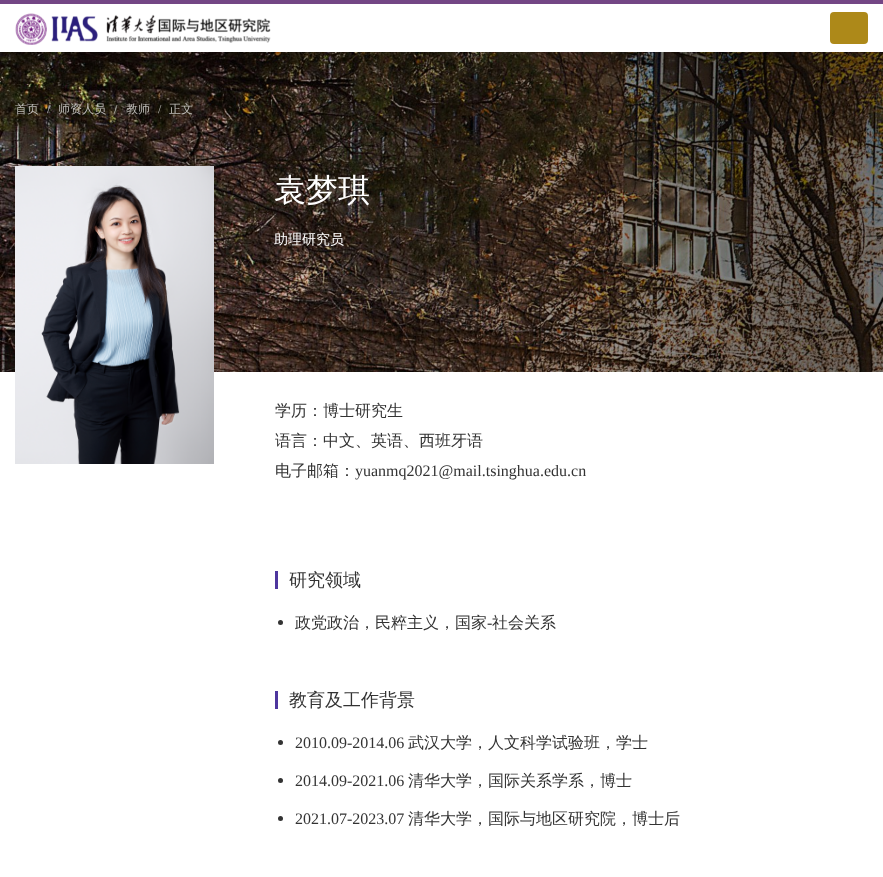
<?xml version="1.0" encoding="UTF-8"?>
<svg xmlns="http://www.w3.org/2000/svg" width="883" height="877">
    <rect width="100%" height="100%" fill="#FFFFFF"/>
    <rect x="0" y="0" width="883" height="4" fill="#734685"/>
    <image x="15" y="13" width="256" height="32" href="img_01.png"/>
    <rect x="830" y="12" width="38" height="32" rx="4" fill="#AD8919"/>
    <image x="0" y="52" width="883" height="320" href="img_02.png"/>
    <text x="15" y="113" font-family="WenQuanYi Zen Hei" font-size="12" font-weight="500" fill="#BEBCB8">首页</text>
    <text x="47" y="113" font-family="Liberation Serif" font-size="12" fill="#C2C2C2">/</text>
    <text x="58" y="113" font-family="WenQuanYi Zen Hei" font-size="12" font-weight="500" fill="#BEBCB8">师资人员</text>
    <text x="114" y="113" font-family="Liberation Serif" font-size="12" fill="#C2C2C2">/</text>
    <text x="126" y="113" font-family="WenQuanYi Zen Hei" font-size="12" font-weight="500" fill="#BEBCB8">教师</text>
    <text x="158" y="113" font-family="Liberation Serif" font-size="12" fill="#BEBCB8">/</text>
    <text x="169" y="113" font-family="WenQuanYi Zen Hei" font-size="12" font-weight="500" fill="#BEBCB8">正文</text>
    <image x="15" y="166" width="199" height="298" href="img_03.png"/>
    <text x="274" y="201" font-family="WenQuanYi Zen Hei" font-size="32" font-weight="500" fill="#FFFFFF">袁梦琪</text>
    <text x="274" y="244" font-family="WenQuanYi Zen Hei" font-size="14" font-weight="500" fill="#FFFFFF">助理研究员</text>
    <text font-family="WenQuanYi Zen Hei" font-size="16" font-weight="500" fill="#333333">
        <tspan x="275" y="416">学历：博士研究生</tspan>
        <tspan x="275" y="446">语言：中文、英语、西班牙语</tspan>
        <tspan x="275" y="476">电子邮箱：</tspan>
    </text>
    <text x="355" y="476" font-family="Liberation Serif" font-size="16" fill="#333333">yuanmq2021@mail.tsinghua.edu.cn</text>
    <rect x="275" y="571" width="3" height="18" fill="#4E369E"/>
    <text x="289" y="586" font-family="WenQuanYi Zen Hei" font-size="18" font-weight="500" fill="#333333">研究领域</text>
    <circle cx="280.5" cy="622.5" r="2.5" fill="#333333"/>
    <text x="295" y="628" font-family="WenQuanYi Zen Hei" font-size="16" font-weight="500" fill="#333333">政党政治，民粹主义，国家</text>
    <text x="487" y="628" font-family="Liberation Serif" font-size="16" fill="#333333">-</text>
    <text x="492" y="628" font-family="WenQuanYi Zen Hei" font-size="16" font-weight="500" fill="#333333">社会关系</text>
    <rect x="275" y="691" width="3" height="18" fill="#4E369E"/>
    <text x="289" y="706" font-family="WenQuanYi Zen Hei" font-size="18" font-weight="500" fill="#333333">教育及工作背景</text>
    <circle cx="280.5" cy="742.5" r="2.5" fill="#333333"/>
    <text x="295" y="748" font-family="Liberation Serif" font-size="16" fill="#333333">2010.09-2014.06</text>
    <text x="408" y="748" font-family="WenQuanYi Zen Hei" font-size="16" font-weight="500" fill="#333333">武汉大学，人文科学试验班，学士</text>
    <circle cx="280.5" cy="780.5" r="2.5" fill="#333333"/>
    <text x="295" y="786" font-family="Liberation Serif" font-size="16" fill="#333333">2014.09-2021.06</text>
    <text x="408" y="786" font-family="WenQuanYi Zen Hei" font-size="16" font-weight="500" fill="#333333">清华大学，国际关系学系，博士</text>
    <circle cx="280.5" cy="818.5" r="2.5" fill="#333333"/>
    <text x="295" y="824" font-family="Liberation Serif" font-size="16" fill="#333333">2021.07-2023.07</text>
    <text x="408" y="824" font-family="WenQuanYi Zen Hei" font-size="16" font-weight="500" fill="#333333">清华大学，国际与地区研究院，博士后</text>
</svg>
